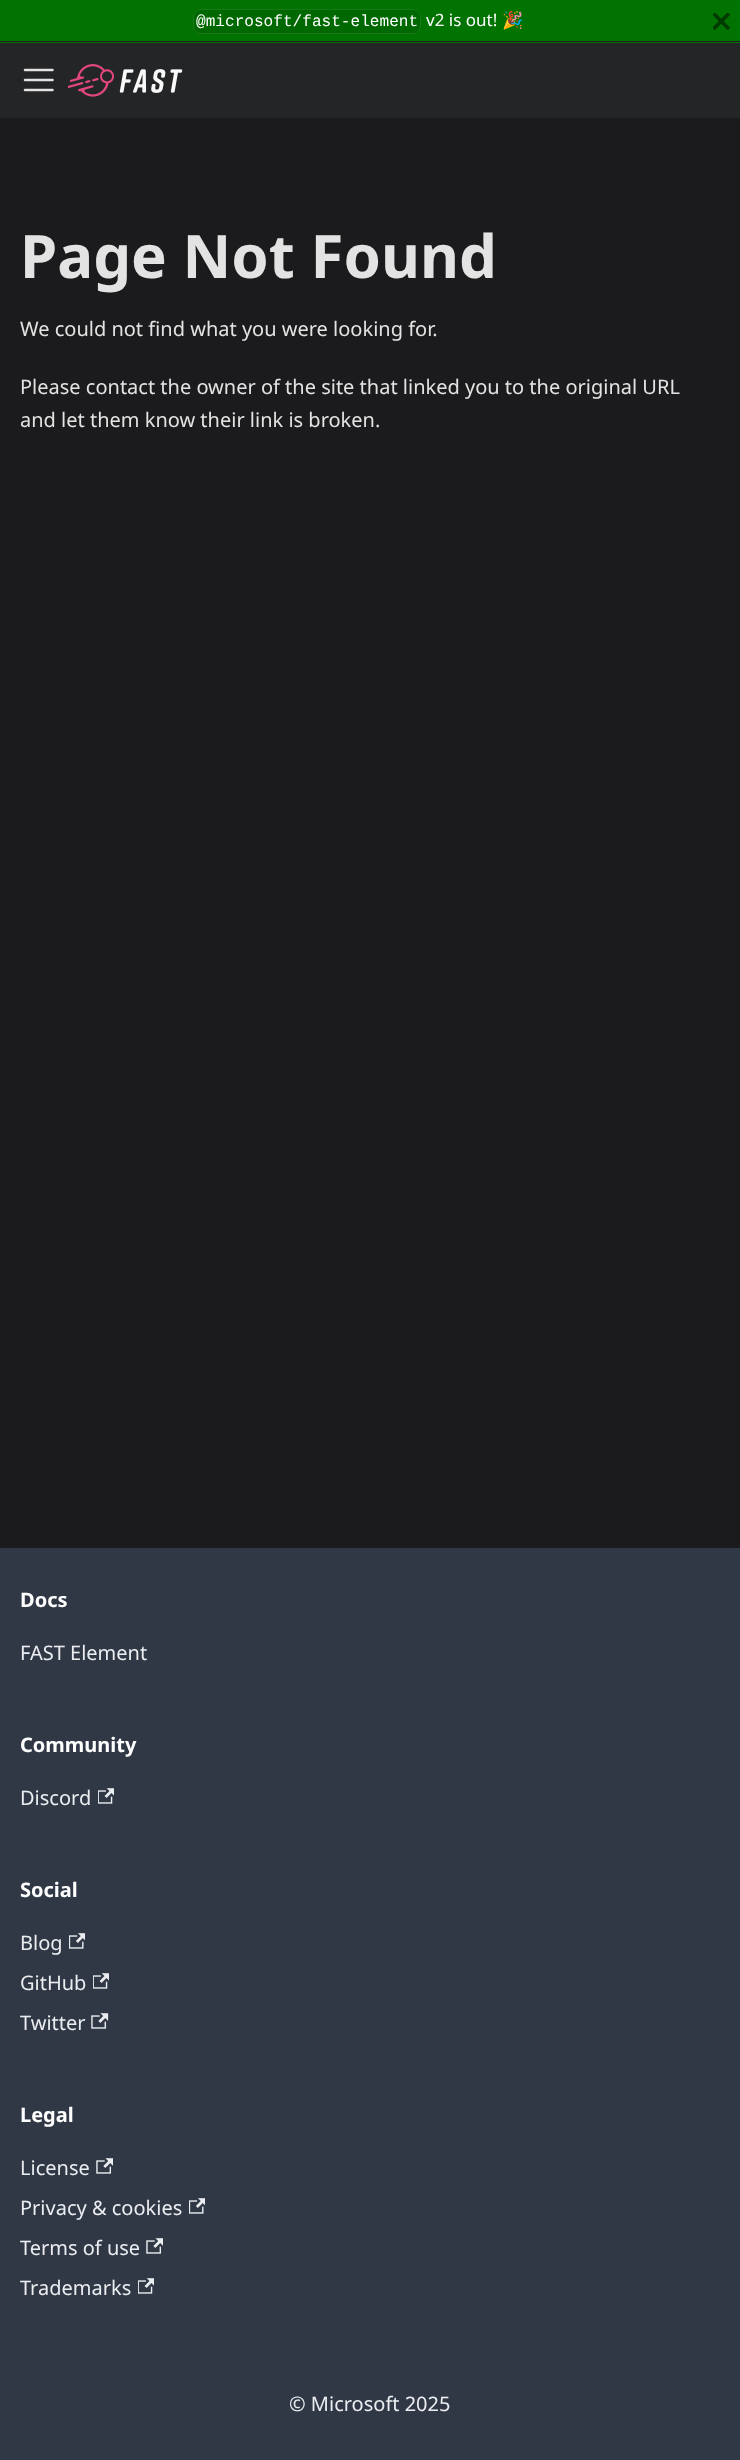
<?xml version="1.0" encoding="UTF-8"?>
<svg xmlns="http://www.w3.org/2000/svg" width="740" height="2460">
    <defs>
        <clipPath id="clip1"><rect x="713" y="13" width="17" height="17"/></clipPath>
    </defs>
    <rect width="100%" height="100%" fill="#1B1B1D"/>
    <rect x="0" y="0" width="740" height="43" fill="#007300"/>
    <rect x="0" y="41" width="740" height="1" fill="#1C1E21"/>
    <rect x="193" y="9" width="228" height="25" rx="8" fill="#006800"/>
    <rect x="193.5" y="9.5" width="227" height="24" rx="7.5" fill="none" stroke="#FFFFFF" stroke-opacity="0.1"/>
    <text x="196" y="26" font-family="Liberation Mono" font-size="16.1" fill="#FFFFFF">@microsoft/fast-element</text>
    <text x="426" y="26" font-family="Noto Sans" font-size="17" fill="#FFFFFF">v2 is out!</text>
    <text x="502" y="26" font-family="Noto Color Emoji" font-size="17" fill="#FFFFFF">🎉️</text>
    <g clip-path="url(#clip1)">
        <path d="M 713.5 13.5 L 729 29 M 729 13.5 L 713.5 29" fill="none" stroke="#003A00" stroke-width="3.6"/>
    </g>
    <rect x="0" y="43" width="740" height="75" fill="#242526"/>
    <path d="M 25 70 H 52.5 M 25 80 H 52.5 M 25 90 H 52.5" fill="none" stroke="#E3E3E3" stroke-width="2.5" stroke-linecap="round"/>
    <image x="68" y="64" width="115" height="33" href="img_01.png"/>
    <text x="20" y="278" font-family="Noto Sans" font-size="60" font-weight="700" fill="#E3E3E3">Page Not Found</text>
    <text x="20" y="336" font-family="Noto Sans" font-size="20" fill="#E3E3E3">We could not find what you were looking for.</text>
    <text font-family="Noto Sans" font-size="20" fill="#E3E3E3">
        <tspan x="20" y="394">Please contact the owner of the site that linked you to the original URL</tspan>
        <tspan x="20" y="427">and let them know their link is broken.</tspan>
    </text>
    <rect x="0" y="1548" width="740" height="912" fill="#303846"/>
    <text x="20" y="1607" font-family="Noto Sans" font-size="20" font-weight="700" fill="#FFFFFF">Docs</text>
    <text x="20" y="1660" font-family="Noto Sans" font-size="20" fill="#EBEDF0">FAST Element</text>
    <text x="20" y="1752" font-family="Noto Sans" font-size="20" font-weight="700" fill="#FFFFFF">Community</text>
    <text x="20" y="1805" font-family="Noto Sans" font-size="20" fill="#EBEDF0">Discord</text>
    <image x="98" y="1788" width="16" height="16" href="img_02.png"/>
    <text x="20" y="1897" font-family="Noto Sans" font-size="20" font-weight="700" fill="#FFFFFF">Social</text>
    <text x="20" y="1950" font-family="Noto Sans" font-size="20" fill="#EBEDF0">Blog</text>
    <image x="69" y="1933" width="16" height="16" href="img_03.png"/>
    <text x="20" y="1990" font-family="Noto Sans" font-size="20" fill="#EBEDF0">GitHub</text>
    <image x="93" y="1973" width="16" height="16" href="img_02.png"/>
    <text x="20" y="2030" font-family="Noto Sans" font-size="20" fill="#EBEDF0">Twitter</text>
    <image x="91" y="2013" width="18" height="16" href="img_04.png"/>
    <text x="20" y="2122" font-family="Noto Sans" font-size="20" font-weight="700" fill="#FFFFFF">Legal</text>
    <text x="20" y="2175" font-family="Noto Sans" font-size="20" fill="#EBEDF0">License</text>
    <image x="96" y="2158" width="17" height="16" href="img_05.png"/>
    <text x="20" y="2215" font-family="Noto Sans" font-size="20" fill="#EBEDF0">Privacy &amp; cookies</text>
    <image x="189" y="2198" width="16" height="16" href="img_03.png"/>
    <text x="20" y="2255" font-family="Noto Sans" font-size="20" fill="#EBEDF0">Terms of use</text>
    <image x="146" y="2238" width="17" height="16" href="img_05.png"/>
    <text x="20" y="2295" font-family="Noto Sans" font-size="20" fill="#EBEDF0">Trademarks</text>
    <image x="138" y="2278" width="16" height="16" href="img_02.png"/>
    <text x="289" y="2411" font-family="Noto Sans" font-size="20" fill="#EBEDF0">© Microsoft 2025</text>
</svg>
